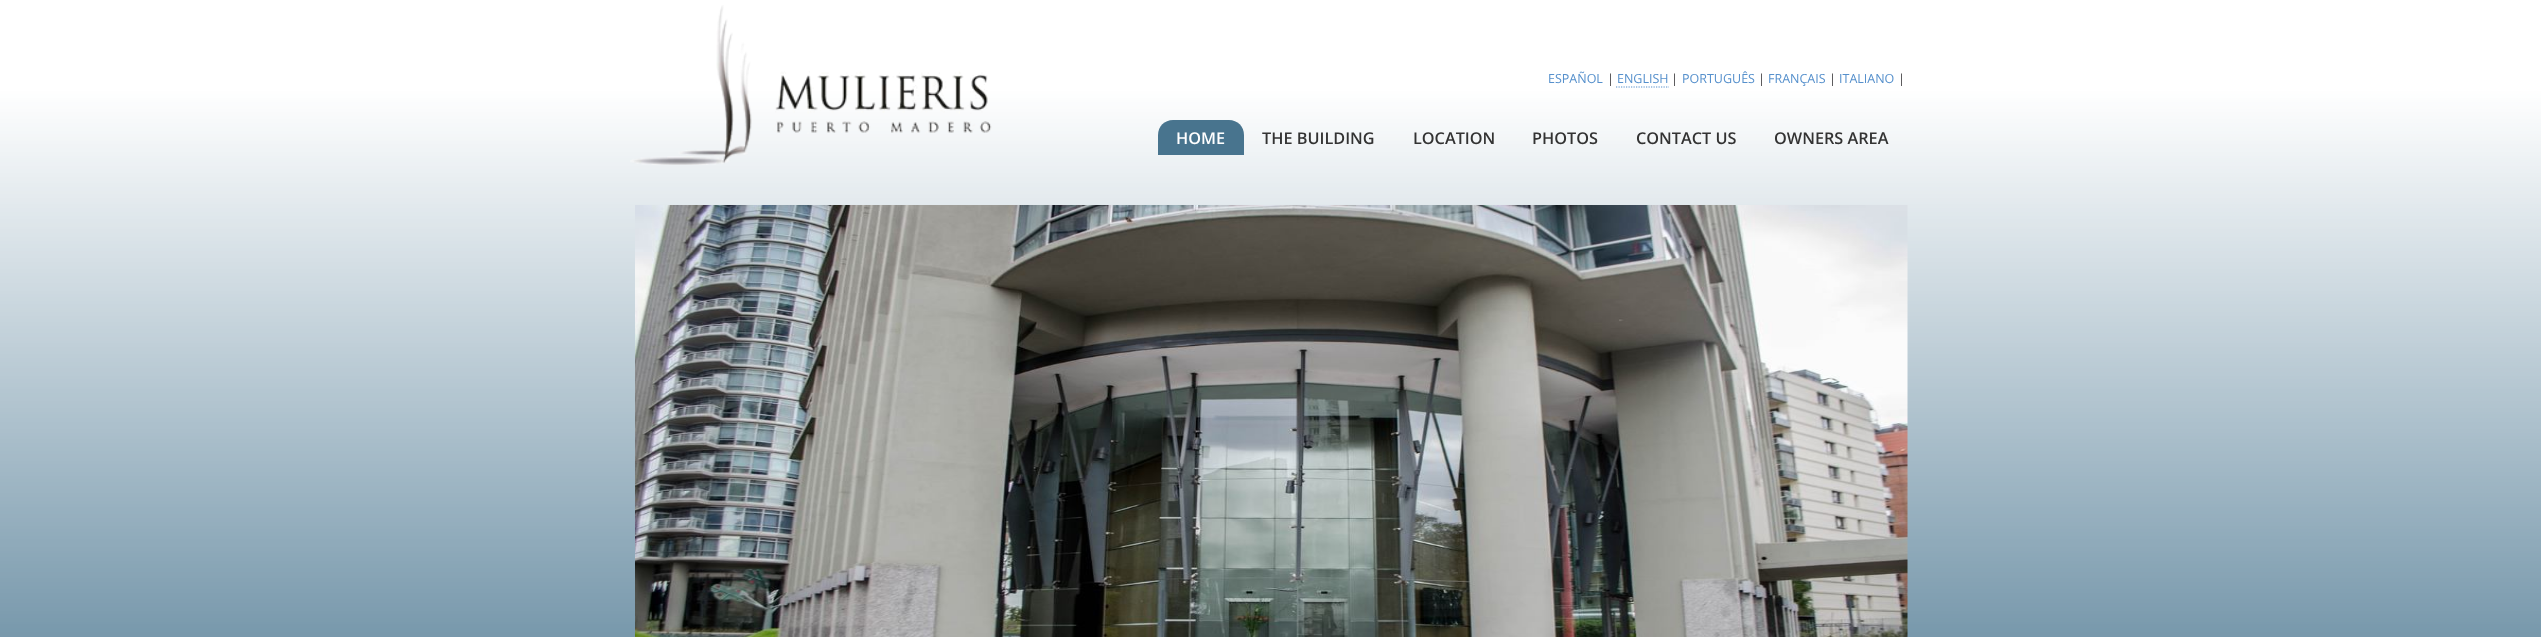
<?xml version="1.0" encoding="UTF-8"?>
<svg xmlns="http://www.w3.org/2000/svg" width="2541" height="637">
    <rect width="100%" height="100%" fill="#FFFFFF"/>
    <image x="0" y="0" width="2541" height="637" href="img_01.png"/>
    <image x="630" y="5" width="362" height="160" href="img_02.png"/>
    <text x="1548" y="83" font-family="Open Sans" font-size="12.5" fill="#5690CC">ESPAÑOL</text>
    <text x="1607" y="83" font-family="Open Sans" font-size="12.5" fill="#414042">|</text>
    <text x="1617" y="83" font-family="Open Sans" font-size="12.5" fill="#5690CC">ENGLISH</text>
    <path d="M 1616 87 H 1669" fill="none" stroke="#5690CC" stroke-width="1.2" stroke-dasharray="1.25 1.25"/>
    <text x="1671" y="83" font-family="Open Sans" font-size="12.5" fill="#414042">|</text>
    <text x="1682" y="83" font-family="Open Sans" font-size="12.5" fill="#5690CC">PORTUGUÊS</text>
    <text x="1758" y="83" font-family="Open Sans" font-size="12.5" fill="#414042">|</text>
    <text x="1768" y="83" font-family="Open Sans" font-size="12.5" fill="#5690CC">FRANÇAIS</text>
    <text x="1829" y="83" font-family="Open Sans" font-size="12.5" fill="#414042">|</text>
    <text x="1839" y="83" font-family="Open Sans" font-size="12.5" fill="#5690CC">ITALIANO</text>
    <text x="1898" y="83" font-family="Open Sans" font-size="12.5" fill="#414042">|</text>
    <path d="M 1173 120 H 1229 C 1237.5 120 1244 126.5 1244 135 V 155 H 1158 V 135 C 1158 126.5 1164.5 120 1173 120 Z" fill="#48748E"/>
    <text x="1176" y="144" font-family="Open Sans" font-size="16.25" font-weight="600" fill="#FFFFFF">HOME</text>
    <text x="1262" y="144" font-family="Open Sans" font-size="16.25" font-weight="600" fill="#333333">THE BUILDING</text>
    <text x="1413" y="144" font-family="Open Sans" font-size="16.25" font-weight="600" fill="#333333">LOCATION</text>
    <text x="1532" y="144" font-family="Open Sans" font-size="16.25" font-weight="600" fill="#333333">PHOTOS</text>
    <text x="1636" y="144" font-family="Open Sans" font-size="16.25" font-weight="600" fill="#333333">CONTACT US</text>
    <text x="1774" y="144" font-family="Open Sans" font-size="16.25" font-weight="600" fill="#333333">OWNERS AREA</text>
    <image x="635" y="205" width="1273" height="432" href="img_03.png"/>
</svg>
